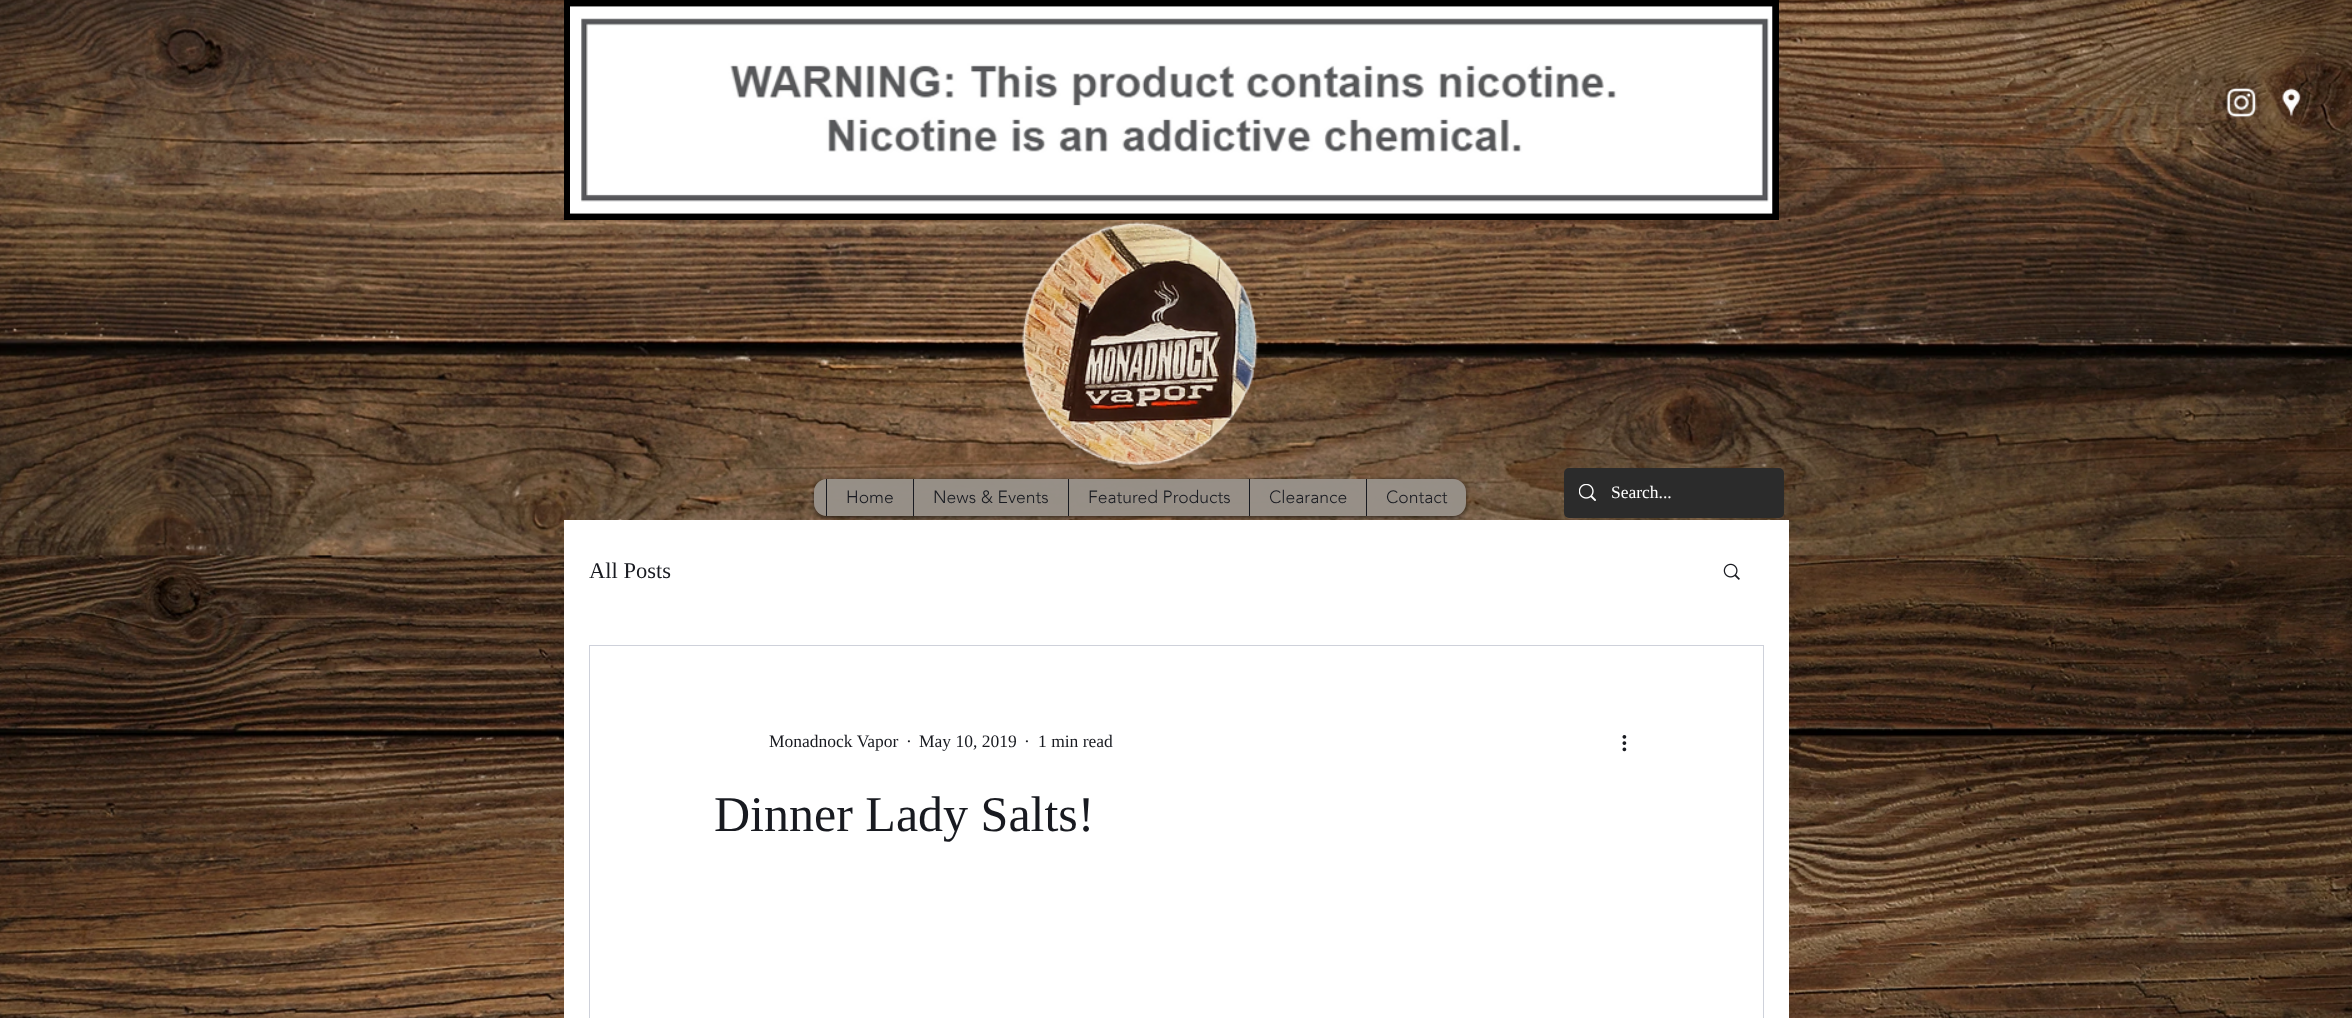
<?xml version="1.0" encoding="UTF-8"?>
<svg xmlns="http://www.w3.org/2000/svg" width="2352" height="1018">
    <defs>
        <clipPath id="clip1"><path d="M 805 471 H 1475 V 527 H 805 Z M 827 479 H 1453 C 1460 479 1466 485 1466 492 V 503 C 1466 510 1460 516 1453 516 H 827 C 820 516 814 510 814 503 V 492 C 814 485 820 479 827 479 Z" clip-rule="evenodd"/></clipPath>
        <filter id="blur1" x="-50%" y="-200%" width="200%" height="500%"><feGaussianBlur stdDeviation="2.5"/></filter>
    </defs>
    <rect width="100%" height="100%" fill="#FFFFFF"/>
    <image x="0" y="0" width="2352" height="1018" href="img_01.png"/>
    <rect x="564" y="0" width="1215" height="220" fill="#000000"/>
    <image x="570" y="6" width="1203" height="208" href="img_02.png"/>
    <image x="2226" y="87" width="31" height="31" href="img_03.png"/>
    <image x="2282" y="88" width="19" height="29" href="img_04.png"/>
    <image x="1022" y="222" width="236" height="244" href="img_05.png"/>
    <g clip-path="url(#clip1)">
        <rect x="814" y="480" width="652" height="38" rx="13" fill="#000000" fill-opacity="0.6" filter="url(#blur1)"/>
    </g>
    <rect x="814" y="479" width="652" height="37" rx="13" fill="#979088" fill-opacity="0.99"/>
    <rect x="826" y="479" width="1" height="37" fill="#181A20"/>
    <text x="846" y="503" font-family="'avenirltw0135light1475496'" font-size="17.5" font-weight="300" fill="#181A20">Home</text>
    <rect x="913" y="479" width="1" height="37" fill="#181A20"/>
    <text x="933" y="503" font-family="'avenirltw0135light1475496'" font-size="17.5" font-weight="300" fill="#181A20">News &amp; Events</text>
    <rect x="1068" y="479" width="1" height="37" fill="#181A20"/>
    <text x="1088" y="503" font-family="'avenirltw0135light1475496'" font-size="17.5" font-weight="300" fill="#181A20">Featured Products</text>
    <rect x="1249" y="479" width="1" height="37" fill="#181A20"/>
    <text x="1269" y="503" font-family="'avenirltw0135light1475496'" font-size="17.5" font-weight="300" fill="#181A20">Clearance</text>
    <rect x="1366" y="479" width="1" height="37" fill="#181A20"/>
    <text x="1386" y="503" font-family="'avenirltw0135light1475496'" font-size="17.5" font-weight="300" fill="#181A20">Contact</text>
    <rect x="1564" y="468" width="220" height="50" rx="5" fill="#2B2B2B"/>
    <image x="1579" y="484" width="17" height="17" href="img_06.png"/>
    <text x="1611" y="498" font-family="Liberation Serif" font-size="17.5" fill="#FFFFFF">Search...</text>
    <rect x="564" y="520" width="1225" height="498" fill="#FFFFFF"/>
    <text x="589" y="578" font-family="Liberation Serif" font-size="22.5" fill="#181A20">All Posts</text>
    <image x="1723" y="563" width="17" height="17" href="img_07.png"/>
    <rect x="589.5" y="645.5" width="1174" height="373" fill="none" stroke="#CED1DA"/>
    <text x="769" y="747" font-family="Liberation Serif" font-size="17.5" fill="#181A20">Monadnock Vapor</text>
    <text x="906" y="747" font-family="Liberation Serif" font-size="17.5" fill="#181A20">·</text>
    <text x="919" y="747" font-family="Liberation Serif" font-size="17.5" fill="#181A20">May 10, 2019</text>
    <text x="1024" y="747" font-family="Liberation Serif" font-size="17.5" fill="#181A20">·</text>
    <text x="1038" y="747" font-family="Liberation Serif" font-size="17.5" fill="#181A20">1 min read</text>
    <image x="1622" y="735" width="5" height="17" href="img_08.png"/>
    <text x="714" y="831" font-family="Liberation Serif" font-size="50" fill="#181A20">Dinner Lady Salts!</text>
</svg>
